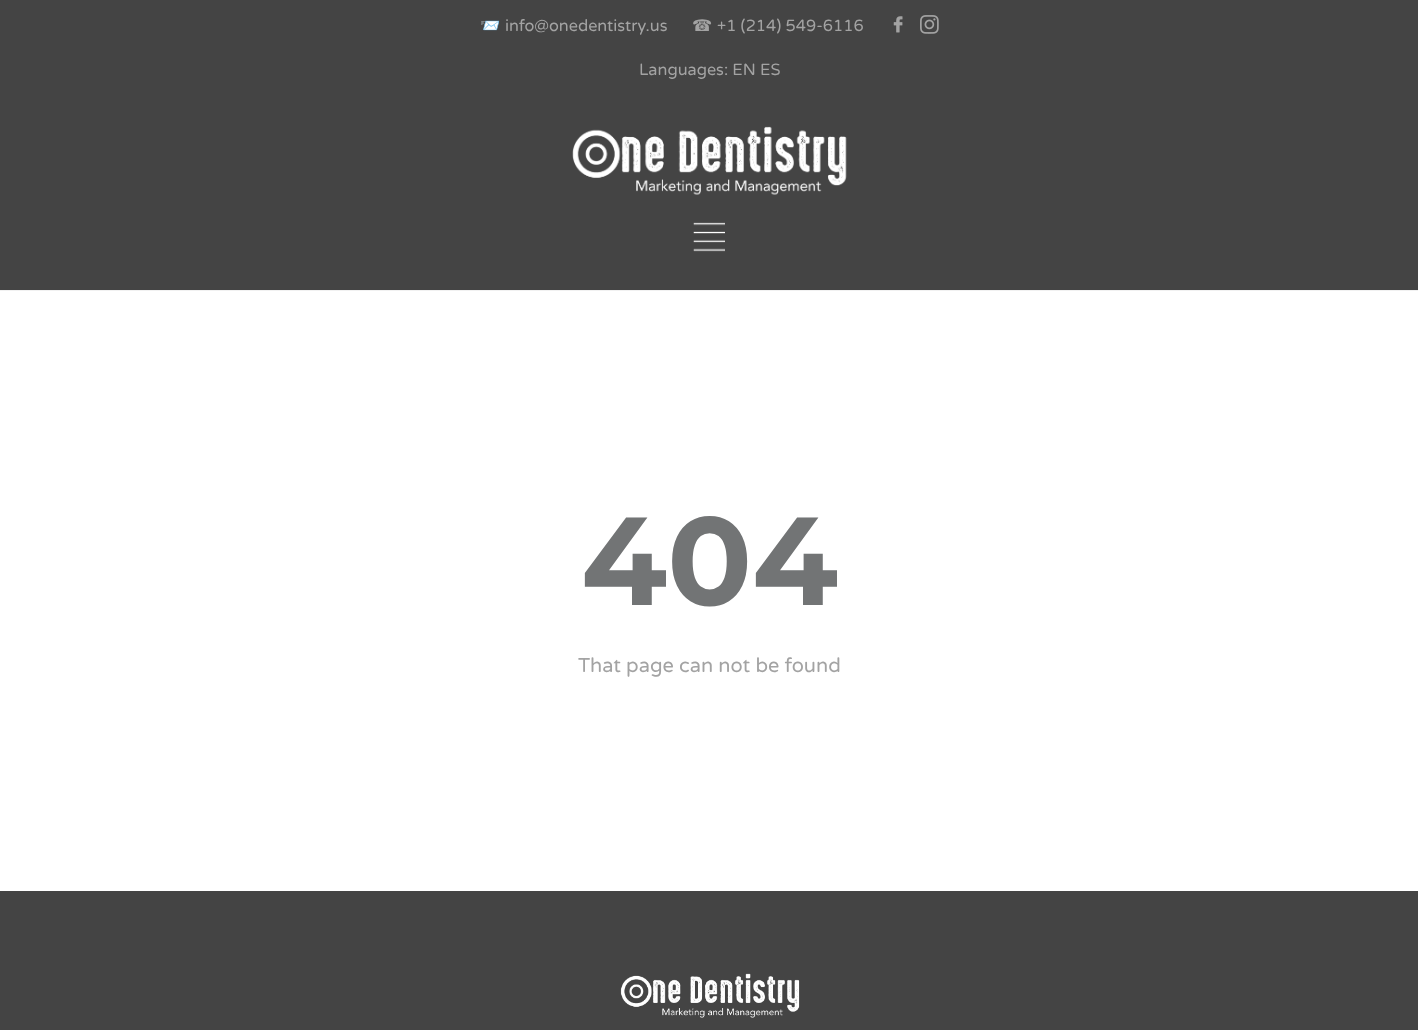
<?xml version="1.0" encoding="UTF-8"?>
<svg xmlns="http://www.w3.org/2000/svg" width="1418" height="1030">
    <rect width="100%" height="100%" fill="#FFFFFF"/>
    <rect x="0" y="0" width="1418" height="290" fill="#444444"/>
    <text x="480" y="31" font-family="Noto Color Emoji" font-size="16.25" fill="#A3A3A3">📨</text>
    <text x="505" y="31" font-family="Varela Round" font-size="16.25" fill="#A3A3A3">info@onedentistry.us</text>
    <text x="692" y="31" font-family="DejaVu Sans" font-size="16.25" fill="#A3A3A3">☎</text>
    <text x="717" y="31" font-family="Varela Round" font-size="16.25" fill="#A3A3A3">+1 (214) 549-6116</text>
    <image x="893" y="16" width="10" height="17" href="img_01.png"/>
    <image x="920" y="15" width="19" height="19" href="img_02.png"/>
    <text x="639" y="75" font-family="Varela Round" font-size="16.25" fill="#A3A3A3">Languages: EN ES</text>
    <rect x="0" y="290" width="1418" height="1" fill="#F1F1F1"/>
    <image x="572" y="126" width="275" height="69" href="img_03.png"/>
    <image x="693" y="222" width="32" height="30" href="img_04.png"/>
    <text x="581" y="605" font-family="Montserrat" font-size="125" font-weight="700" fill="#727475">404</text>
    <text x="578" y="672" font-family="Varela Round" font-size="20" fill="#A3A3A3">That page can not be found</text>
    <rect x="0" y="891" width="1418" height="139" fill="#444444"/>
    <image x="620" y="973" width="180" height="45" href="img_05.png"/>
</svg>
